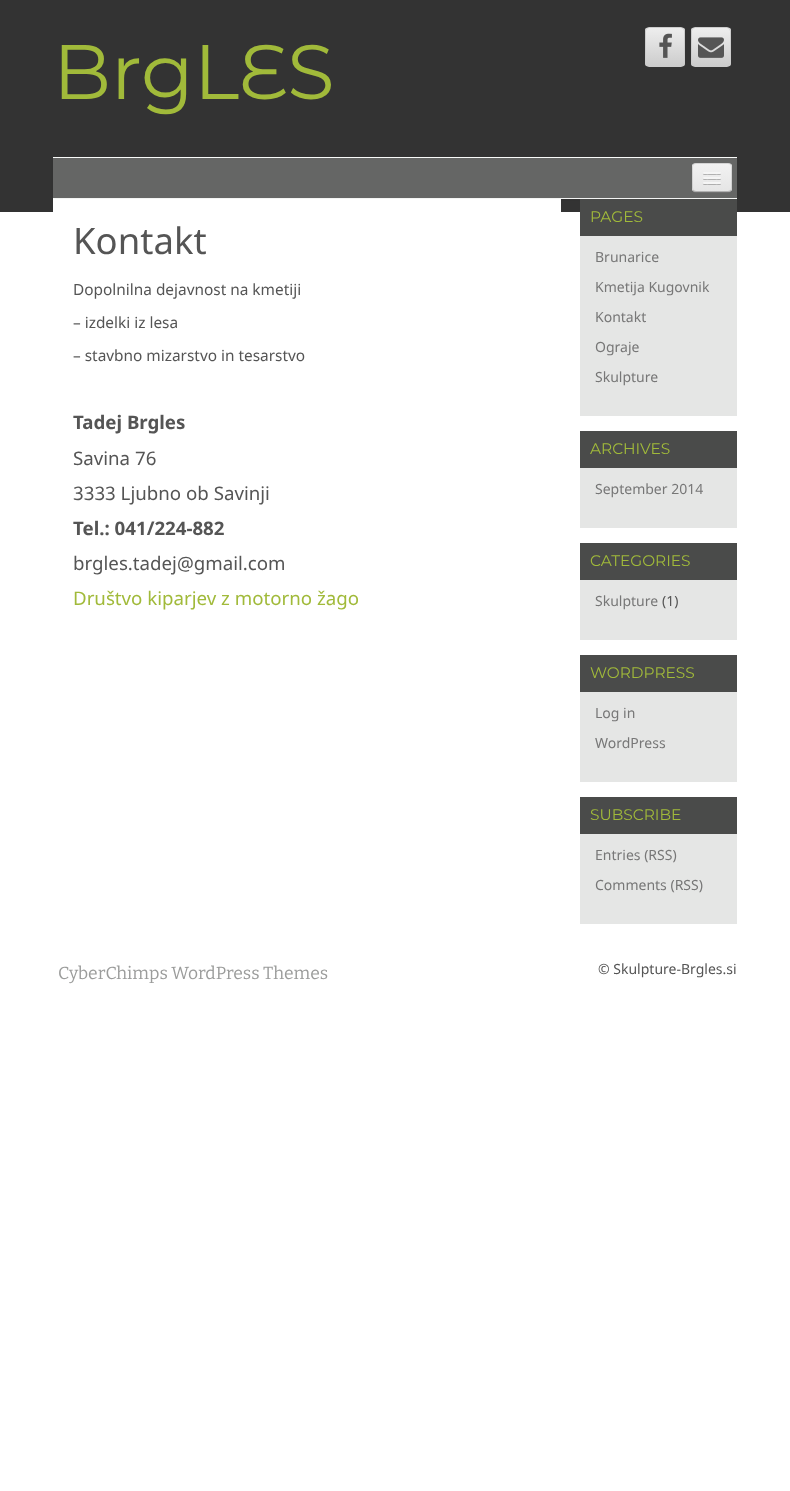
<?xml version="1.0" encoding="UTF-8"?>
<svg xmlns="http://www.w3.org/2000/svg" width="790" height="1491">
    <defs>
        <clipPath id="clip1"><rect x="645" y="27" width="40" height="40" rx="4"/></clipPath>
        <linearGradient id="g1" gradientUnits="userSpaceOnUse" x1="665" y1="28" x2="665" y2="66"><stop offset="0" stop-color="#EEEEEE"/><stop offset="1" stop-color="#CCCCCC"/></linearGradient>
        <clipPath id="clip2"><rect x="691" y="27" width="40" height="40" rx="4"/></clipPath>
        <linearGradient id="g2" gradientUnits="userSpaceOnUse" x1="711" y1="28" x2="711" y2="66"><stop offset="0" stop-color="#EEEEEE"/><stop offset="1" stop-color="#CCCCCC"/></linearGradient>
        <filter id="blur1" x="-50%" y="-200%" width="200%" height="500%"><feGaussianBlur stdDeviation="2"/></filter>
        <clipPath id="clip3"><rect x="692" y="163" width="40" height="29" rx="4"/></clipPath>
        <linearGradient id="g3" gradientUnits="userSpaceOnUse" x1="712" y1="164" x2="712" y2="191"><stop offset="0" stop-color="#F2F2F2"/><stop offset="1" stop-color="#E5E5E5"/></linearGradient>
    </defs>
    <rect width="100%" height="100%" fill="#FFFFFF"/>
    <rect x="0" y="0" width="790" height="212" fill="#333333"/>
    <text x="53" y="99" font-family="Montserrat Alternates" font-size="77" fill="#A1BA3A">BrgLES</text>
    <g clip-path="url(#clip1)">
        <rect x="645" y="28" width="40" height="38" fill="url(#g1)"/>
    </g>
    <rect x="645.5" y="27.5" width="39" height="39" rx="3.5" fill="none" stroke="#CCCCCC"/>
    <image x="659" y="33" width="13" height="25" href="img_01.png"/>
    <g clip-path="url(#clip2)">
        <rect x="691" y="28" width="40" height="38" fill="url(#g2)"/>
    </g>
    <rect x="691.5" y="27.5" width="39" height="39" rx="3.5" fill="none" stroke="#CCCCCC"/>
    <image x="698" y="37" width="26" height="21" href="img_02.png"/>
    <rect x="53" y="157" width="684" height="1" fill="#FEFFFE"/>
    <rect x="53" y="198" width="684" height="1" fill="#FEFFFE"/>
    <rect x="53" y="159" width="684" height="40" fill="#000000" fill-opacity="0.07" filter="url(#blur1)"/>
    <rect x="53" y="158" width="684" height="40" fill="#656665"/>
    <path d="M 692 188 C 692 194 697 193 701 193 H 723 C 727 193 732 194 732 188 C 732 190 730 192 728 192 H 696 C 694 192 692 190 692 188 Z" fill="#717171"/>
    <rect x="692" y="163" width="40" height="29" rx="4" fill="#EDEDED"/>
    <g clip-path="url(#clip3)">
        <rect x="692" y="164" width="40" height="27" fill="url(#g3)"/>
    </g>
    <path d="M 730.5 190.5 C 730 191 729 191.5 728 191.5 H 696 C 695 191.5 694 191 693.5 190.5" fill="none" stroke="#000000" stroke-opacity="0.25"/>
    <path d="M 693.5 190.5 C 693 190 692.5 189 692.5 188 V 167 C 692.5 166 693 165 693.5 164.5 C 694 164 695 163.5 696 163.5 H 728 C 729 163.5 730 164 730.5 164.5 C 731 165 731.5 166 731.5 167 V 188 C 731.5 189 731 190 730.5 190.5" fill="none" stroke="#000000" stroke-opacity="0.1"/>
    <path d="M 703 173.5 C 702 175.5 706.5 175 706.5 175 H 717.5 C 717.5 175 722 175.5 721 173.5 C 720 174.5 713.5 174 712 174 C 710.5 174 704 174.5 703 173.5 Z" fill="#B2B2B2"/>
    <rect x="703" y="172" width="18" height="2" rx="1" fill="#F5F5F5"/>
    <path d="M 703 178.5 C 702 180.5 706.5 180 706.5 180 H 717.5 C 717.5 180 722 180.5 721 178.5 C 720 179.5 713.5 179 712 179 C 710.5 179 704 179.5 703 178.5 Z" fill="#B0B0B0"/>
    <rect x="703" y="177" width="18" height="2" rx="1" fill="#F5F5F5"/>
    <path d="M 703 183.5 C 702 185.5 706.5 185 706.5 185 H 717.5 C 717.5 185 722 185.5 721 183.5 C 720 184.5 713.5 184 712 184 C 710.5 184 704 184.5 703 183.5 Z" fill="#AEAEAE"/>
    <rect x="703" y="182" width="18" height="2" rx="1" fill="#F5F5F5"/>
    <rect x="53" y="199" width="508" height="13" fill="#FFFFFF"/>
    <text x="73" y="254" font-family="Noto Sans" font-size="36.5" fill="#555555">Kontakt</text>
    <text x="73" y="295" font-family="Noto Sans" font-size="15.4" fill="#555555">Dopolnilna dejavnost na kmetiji</text>
    <text x="73" y="328" font-family="Noto Sans" font-size="15.4" fill="#555555">– izdelki iz lesa</text>
    <text x="73" y="361" font-family="Noto Sans" font-size="15.4" fill="#555555">– stavbno mizarstvo in tesarstvo</text>
    <text x="73" y="429" font-family="Noto Sans" font-size="18.7" font-weight="700" fill="#555555">Tadej Brgles</text>
    <text font-family="Noto Sans" font-size="18.7" fill="#555555">
        <tspan x="73" y="465">Savina 76</tspan>
        <tspan x="73" y="500">3333 Ljubno ob Savinji</tspan>
    </text>
    <text x="73" y="535" font-family="Noto Sans" font-size="18.7" font-weight="700" fill="#555555">Tel.: 041/224-882</text>
    <text x="73" y="570" font-family="Noto Sans" font-size="18.7" fill="#555555">brgles.tadej@gmail.com</text>
    <text x="73" y="605" font-family="Noto Sans" font-size="18.7" fill="#A1BA3A">Društvo kiparjev z motorno žago</text>
    <rect x="580" y="236" width="157" height="180" fill="#E5E6E5"/>
    <rect x="580" y="199" width="157" height="37" fill="#4A4B4A"/>
    <text x="590" y="222" font-family="Montserrat" font-size="15.4" fill="#A1BA3A">PAGES</text>
    <text x="595" y="262" font-family="Noto Sans" font-size="14" fill="#777777">Brunarice</text>
    <text x="595" y="292" font-family="Noto Sans" font-size="14" fill="#777777">Kmetija Kugovnik</text>
    <text x="595" y="322" font-family="Noto Sans" font-size="14" fill="#777777">Kontakt</text>
    <text x="595" y="352" font-family="Noto Sans" font-size="14" fill="#777777">Ograje</text>
    <text x="595" y="382" font-family="Noto Sans" font-size="14" fill="#777777">Skulpture</text>
    <rect x="580" y="468" width="157" height="60" fill="#E5E6E5"/>
    <rect x="580" y="431" width="157" height="37" fill="#4A4B4A"/>
    <text x="590" y="454" font-family="Montserrat" font-size="15.4" fill="#A1BA3A">ARCHIVES</text>
    <text x="595" y="494" font-family="Noto Sans" font-size="14" fill="#777777">September 2014</text>
    <rect x="580" y="580" width="157" height="60" fill="#E5E6E5"/>
    <rect x="580" y="543" width="157" height="37" fill="#4A4B4A"/>
    <text x="590" y="566" font-family="Montserrat" font-size="15.4" fill="#A1BA3A">CATEGORIES</text>
    <text x="595" y="606" font-family="Noto Sans" font-size="14" fill="#777777">Skulpture</text>
    <text x="662" y="606" font-family="Noto Sans" font-size="14" fill="#555555">(1)</text>
    <rect x="580" y="692" width="157" height="90" fill="#E5E6E5"/>
    <rect x="580" y="655" width="157" height="37" fill="#4A4B4A"/>
    <text x="590" y="678" font-family="Montserrat" font-size="15.4" fill="#A1BA3A">WORDPRESS</text>
    <text x="595" y="718" font-family="Noto Sans" font-size="14" fill="#777777">Log in</text>
    <text x="595" y="748" font-family="Noto Sans" font-size="14" fill="#777777">WordPress</text>
    <rect x="580" y="834" width="157" height="90" fill="#E5E6E5"/>
    <rect x="580" y="797" width="157" height="37" fill="#4A4B4A"/>
    <text x="590" y="820" font-family="Montserrat" font-size="15.4" fill="#A1BA3A">SUBSCRIBE</text>
    <text x="595" y="860" font-family="Noto Sans" font-size="14" fill="#777777">Entries (RSS)</text>
    <text x="595" y="890" font-family="Noto Sans" font-size="14" fill="#777777">Comments (RSS)</text>
    <text x="58" y="979" font-family="Bitter" font-size="17.5" font-weight="100" fill="#9B9C9B">CyberChimps WordPress Themes</text>
    <text x="598" y="974" font-family="Noto Sans" font-size="14" fill="#555555">© Skulpture-Brgles.si</text>
</svg>
